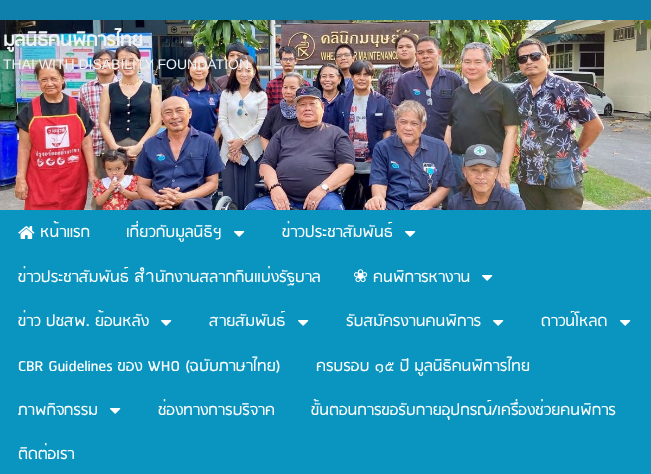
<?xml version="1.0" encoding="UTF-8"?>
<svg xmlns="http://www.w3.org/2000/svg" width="651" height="474">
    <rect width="100%" height="100%" fill="#0F7FAB"/>
    <image x="0" y="20" width="651" height="190" href="img_01.png"/>
    <text x="3" y="46" font-family="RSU" font-size="21.75" font-weight="700" fill="#EDF3F5">มูลนิธิคนพิการไทย</text>
    <text x="3" y="69" font-family="Liberation Sans" font-size="14" fill="#EDF3F5">THAI WITH DISABILITY FOUNDATION</text>
    <rect x="0" y="210" width="651" height="264" fill="#0A95C0"/>
    <image x="18" y="226" width="17" height="13" href="img_02.png"/>
    <text x="40" y="237" font-family="RSU" font-size="18" fill="#FFFFFF">หน้าแรก</text>
    <text x="126" y="237" font-family="RSU" font-size="18" fill="#FFFFFF">เกี่ยวกับมูลนิธิฯ</text>
    <image x="234" y="231" width="11" height="6" href="img_03.png"/>
    <text x="282" y="237" font-family="RSU" font-size="18" fill="#FFFFFF">ข่าวประชาสัมพันธ์</text>
    <image x="405" y="231" width="11" height="6" href="img_03.png"/>
    <text x="18" y="282" font-family="RSU" font-size="18" fill="#FFFFFF">ข่าวประชาสัมพันธ์ สำนักงานสลากกินแบ่งรัฐบาล</text>
    <text x="353" y="282" font-family="DejaVu Sans" font-size="18" fill="#FFFFFF">❀</text>
    <text x="373" y="282" font-family="RSU" font-size="18" fill="#FFFFFF">คนพิการหางาน</text>
    <image x="482" y="275" width="11" height="6" href="img_03.png"/>
    <text x="18" y="326" font-family="RSU" font-size="18" fill="#FFFFFF">ข่าว ปชสพ. ย้อนหลัง</text>
    <image x="161" y="320" width="11" height="6" href="img_03.png"/>
    <text x="209" y="326" font-family="RSU" font-size="18" fill="#FFFFFF">สายสัมพันธ์</text>
    <image x="298" y="320" width="11" height="6" href="img_03.png"/>
    <text x="346" y="326" font-family="RSU" font-size="18" fill="#FFFFFF">รับสมัครงานคนพิการ</text>
    <image x="493" y="320" width="11" height="6" href="img_03.png"/>
    <text x="541" y="326" font-family="RSU" font-size="18" fill="#FFFFFF">ดาวน์โหลด</text>
    <image x="620" y="320" width="11" height="6" href="img_03.png"/>
    <text x="18" y="371" font-family="RSU" font-size="18" fill="#FFFFFF">CBR Guidelines ของ WHO (ฉบับภาษาไทย)</text>
    <text x="316" y="371" font-family="RSU" font-size="18" fill="#FFFFFF">ครบรอบ ๑๕ ปี มูลนิธิคนพิการไทย</text>
    <text x="18" y="415" font-family="RSU" font-size="18" fill="#FFFFFF">ภาพกิจกรรม</text>
    <image x="110" y="408" width="11" height="6" href="img_03.png"/>
    <text x="158" y="415" font-family="RSU" font-size="18" fill="#FFFFFF">ช่องทางการบริจาค</text>
    <text x="311" y="415" font-family="RSU" font-size="18" fill="#FFFFFF">ขั้นตอนการขอรับกายอุปกรณ์/เครื่องช่วยคนพิการ</text>
    <text x="18" y="459" font-family="RSU" font-size="18" fill="#FFFFFF">ติดต่อเรา</text>
</svg>
